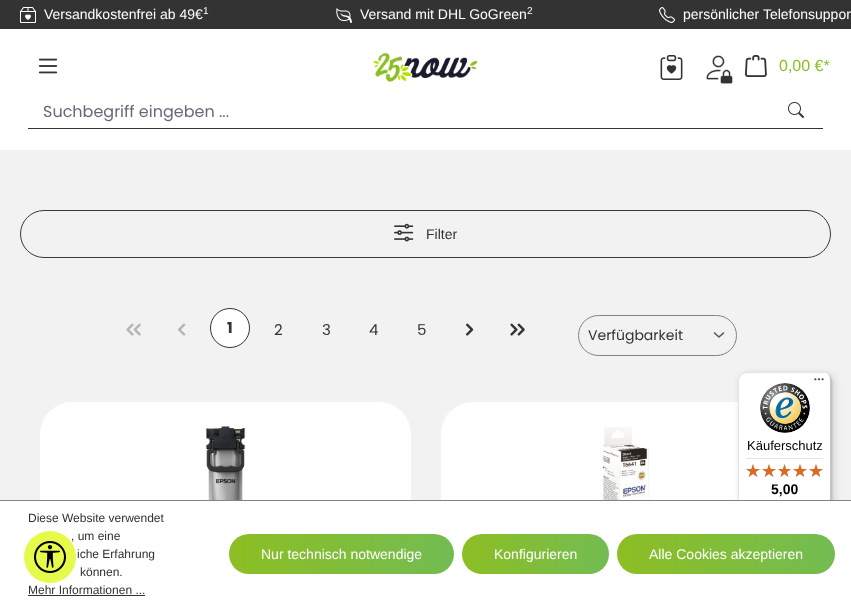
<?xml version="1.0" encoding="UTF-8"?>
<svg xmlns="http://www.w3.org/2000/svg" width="851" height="607">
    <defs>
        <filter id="blur1" x="-50%" y="-200%" width="200%" height="500%"><feGaussianBlur stdDeviation="4"/></filter>
        <filter id="blur2" x="-50%" y="-200%" width="200%" height="500%"><feGaussianBlur stdDeviation="1"/></filter>
        <linearGradient id="g1" gradientUnits="userSpaceOnUse" x1="229" y1="554" x2="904" y2="554"><stop offset="0" stop-color="#8DBE23"/><stop offset="0.5" stop-color="#66BB6A"/><stop offset="1" stop-color="#8DBE23"/></linearGradient>
        <linearGradient id="g2" gradientUnits="userSpaceOnUse" x1="462" y1="554" x2="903" y2="554"><stop offset="0" stop-color="#8DBE23"/><stop offset="0.5" stop-color="#66BB6A"/><stop offset="1" stop-color="#8DBE23"/></linearGradient>
        <linearGradient id="g3" gradientUnits="userSpaceOnUse" x1="617" y1="554" x2="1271" y2="554"><stop offset="0" stop-color="#8DBE23"/><stop offset="0.5" stop-color="#66BB6A"/><stop offset="1" stop-color="#8DBE23"/></linearGradient>
    </defs>
    <rect width="100%" height="100%" fill="#F2F2F2"/>
    <rect x="0" y="0" width="851" height="29" fill="#333333"/>
    <image x="20" y="7" width="16" height="16" href="img_01.png"/>
    <text x="44" y="19" font-family="Liberation Sans" font-size="14" fill="#FFFFFF">Versandkostenfrei ab 49€</text>
    <text x="203" y="14" font-family="Liberation Sans" font-size="10" fill="#FFFFFF">1</text>
    <image x="336" y="8" width="16" height="15" href="img_02.png"/>
    <text x="360" y="19" font-family="Liberation Sans" font-size="14" fill="#FFFFFF">Versand mit DHL GoGreen</text>
    <text x="527" y="14" font-family="Liberation Sans" font-size="10" fill="#FFFFFF">2</text>
    <image x="659" y="7" width="16" height="16" href="img_03.png"/>
    <text x="683" y="19" font-family="Liberation Sans" font-size="14" fill="#FFFFFF">persönlicher Telefonsuppor</text>
    <rect x="0" y="29" width="851" height="121" fill="#FFFFFF"/>
    <image x="38" y="58" width="20" height="16" href="img_04.png"/>
    <image x="373" y="52" width="105" height="30" href="img_05.png"/>
    <image x="660" y="55" width="23" height="25" href="img_06.png"/>
    <image x="706" y="55" width="27" height="29" href="img_07.png"/>
    <image x="745" y="55" width="22" height="22" href="img_08.png"/>
    <text x="779" y="71" font-family="Liberation Sans" font-size="16" fill="#8DBE23">0,00 €*</text>
    <rect x="28" y="128" width="795" height="1" fill="#333333"/>
    <text x="43" y="117" font-family="Poppins" font-size="16" fill="#666977">Suchbegriff eingeben ...</text>
    <image x="788" y="102" width="16" height="16" href="img_09.png"/>
    <rect x="20.5" y="210.5" width="810" height="47" rx="23.5" fill="none" stroke="#333D3E"/>
    <image x="394" y="223" width="20" height="19" href="img_10.png"/>
    <text x="426" y="239" font-family="Liberation Sans" font-size="14" fill="#333333">Filter</text>
    <image x="126" y="323" width="15" height="13" href="img_11.png"/>
    <image x="178" y="323" width="8" height="13" href="img_12.png"/>
    <circle cx="230" cy="328" r="19.5" fill="#FFFFFF" stroke="#333333"/>
    <text x="227" y="333" font-family="Poppins" font-size="15" font-weight="700" fill="#333333">1</text>
    <text x="274" y="335" font-family="Poppins" font-size="15" fill="#333333">2</text>
    <text x="322" y="335" font-family="Poppins" font-size="15" fill="#333333">3</text>
    <text x="369" y="335" font-family="Poppins" font-size="15" fill="#333333">4</text>
    <text x="417" y="335" font-family="Poppins" font-size="15" fill="#333333">5</text>
    <image x="466" y="323" width="8" height="13" href="img_13.png"/>
    <image x="510" y="323" width="15" height="13" href="img_14.png"/>
    <path d="M 714.5 333 L 719 337 L 723.5 333" fill="none" stroke="#4A545B" stroke-width="1.5" stroke-linecap="round" stroke-linejoin="round"/>
    <rect x="578.5" y="315.5" width="158" height="40" rx="20" fill="none" stroke="#798490"/>
    <text x="588" y="340" font-family="Poppins" font-size="14" fill="#333333">Verfügbarkeit</text>
    <rect x="40" y="402" width="371" height="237" rx="32" fill="#FFFFFF"/>
    <image x="206" y="426" width="40" height="74" href="img_15.png"/>
    <rect x="441" y="402" width="370" height="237" rx="32" fill="#FFFFFF"/>
    <image x="600" y="426" width="51" height="74" href="img_16.png"/>
    <rect x="741" y="375" width="93" height="155" rx="8" fill="#000000" fill-opacity="0.15" filter="url(#blur1)"/>
    <rect x="739" y="373" width="93" height="155" rx="8" fill="#000000" fill-opacity="0.15" filter="url(#blur2)"/>
    <rect x="738" y="372" width="93" height="155" rx="8" fill="#FFFFFF"/>
    <path d="M 747 373 H 824 C 826 373 828 374 830 376 C 828 374 826 372 823 372 H 746 C 742 372 738 376 738 380 V 519 C 738 522 740 524 742 526 C 740 524 739 522 739 520 V 381 C 739 377 743 373 747 373 Z" fill="#000000" fill-opacity="0.1"/>
    <path d="M 739 523 C 741 525 743 527 746 527 H 823 C 827 527 831 523 831 519 V 380 C 831 377 829 375 827 373 C 829 375 830 377 830 379 V 518 C 830 522 826 526 822 526 H 745 C 743 526 741 525 739 523 Z" fill="#000000" fill-opacity="0.2"/>
    <path d="M 740 524 C 741 526 744 527 746 527 H 823 C 827 527 831 523 831 519 V 380 C 831 378 830 375 828 374 C 829 375 830 377 830 379 V 518 C 830 523 827 526 822 526 H 745 C 743 526 741 525 740 524 Z" fill="#323232" fill-opacity="0.2"/>
    <path d="M 830 380 C 830 375 827 372 822 372 H 823 C 827 372 831 376 831 380 V 519 C 831 523 827 527 823 527 H 746 C 742 527 738 523 738 519 V 518 C 738 523 741 526 746 526 H 822 C 827 526 830 523 830 518 Z" fill="#FFFFFF" fill-opacity="0.3"/>
    <image x="814" y="378" width="10" height="3" href="img_17.png"/>
    <image x="760" y="383" width="50" height="50" href="img_18.png"/>
    <text x="747" y="450" font-family="Liberation Sans" font-size="13" fill="#000000">Käuferschutz</text>
    <rect x="746" y="458" width="77" height="1" fill="#E5E5E5"/>
    <image x="746" y="464" width="14" height="13" href="img_19.png"/>
    <image x="762" y="464" width="14" height="13" href="img_19.png"/>
    <image x="778" y="464" width="13" height="13" href="img_20.png"/>
    <image x="793" y="464" width="14" height="13" href="img_19.png"/>
    <image x="809" y="464" width="14" height="13" href="img_19.png"/>
    <image x="746" y="464" width="14" height="13" href="img_21.png"/>
    <image x="762" y="464" width="14" height="13" href="img_21.png"/>
    <image x="778" y="464" width="13" height="13" href="img_22.png"/>
    <image x="793" y="464" width="14" height="13" href="img_21.png"/>
    <image x="809" y="464" width="14" height="13" href="img_21.png"/>
    <text x="771" y="494" font-family="Liberation Sans" font-size="14" font-weight="700" fill="#000000">5,00</text>
    <rect x="0" y="501" width="851" height="106" fill="#FFFFFF"/>
    <rect x="0" y="500" width="851" height="1" fill="#798490"/>
    <text x="28" y="522" font-family="Liberation Sans" font-size="12" fill="#2B3136">Diese Website verwendet</text>
    <text x="71" y="540" font-family="Liberation Sans" font-size="12" fill="#2B3136">, um eine</text>
    <text x="77" y="558" font-family="Liberation Sans" font-size="12" fill="#2B3136">iche Erfahrung</text>
    <text x="80" y="576" font-family="Liberation Sans" font-size="12" fill="#2B3136">können.</text>
    <text x="28" y="594" font-family="Liberation Sans" font-size="12" fill="#333333">Mehr Informationen ...</text>
    <rect x="28" y="595" width="117" height="1" fill="#333333"/>
    <rect x="229" y="534" width="225" height="40" rx="20" fill="url(#g1)"/>
    <text x="261" y="559" font-family="Liberation Sans" font-size="14" fill="#FFFFFF">Nur technisch notwendige</text>
    <rect x="462" y="534" width="147" height="40" rx="20" fill="url(#g2)"/>
    <text x="494" y="559" font-family="Liberation Sans" font-size="14" fill="#FFFFFF">Konfigurieren</text>
    <rect x="617" y="534" width="218" height="40" rx="20" fill="url(#g3)"/>
    <text x="649" y="559" font-family="Liberation Sans" font-size="14" fill="#FFFFFF">Alle Cookies akzeptieren</text>
    <circle cx="50" cy="557" r="26" fill="#E5FA4A"/>
    <image x="34" y="541" width="32" height="32" href="img_23.png"/>
</svg>
